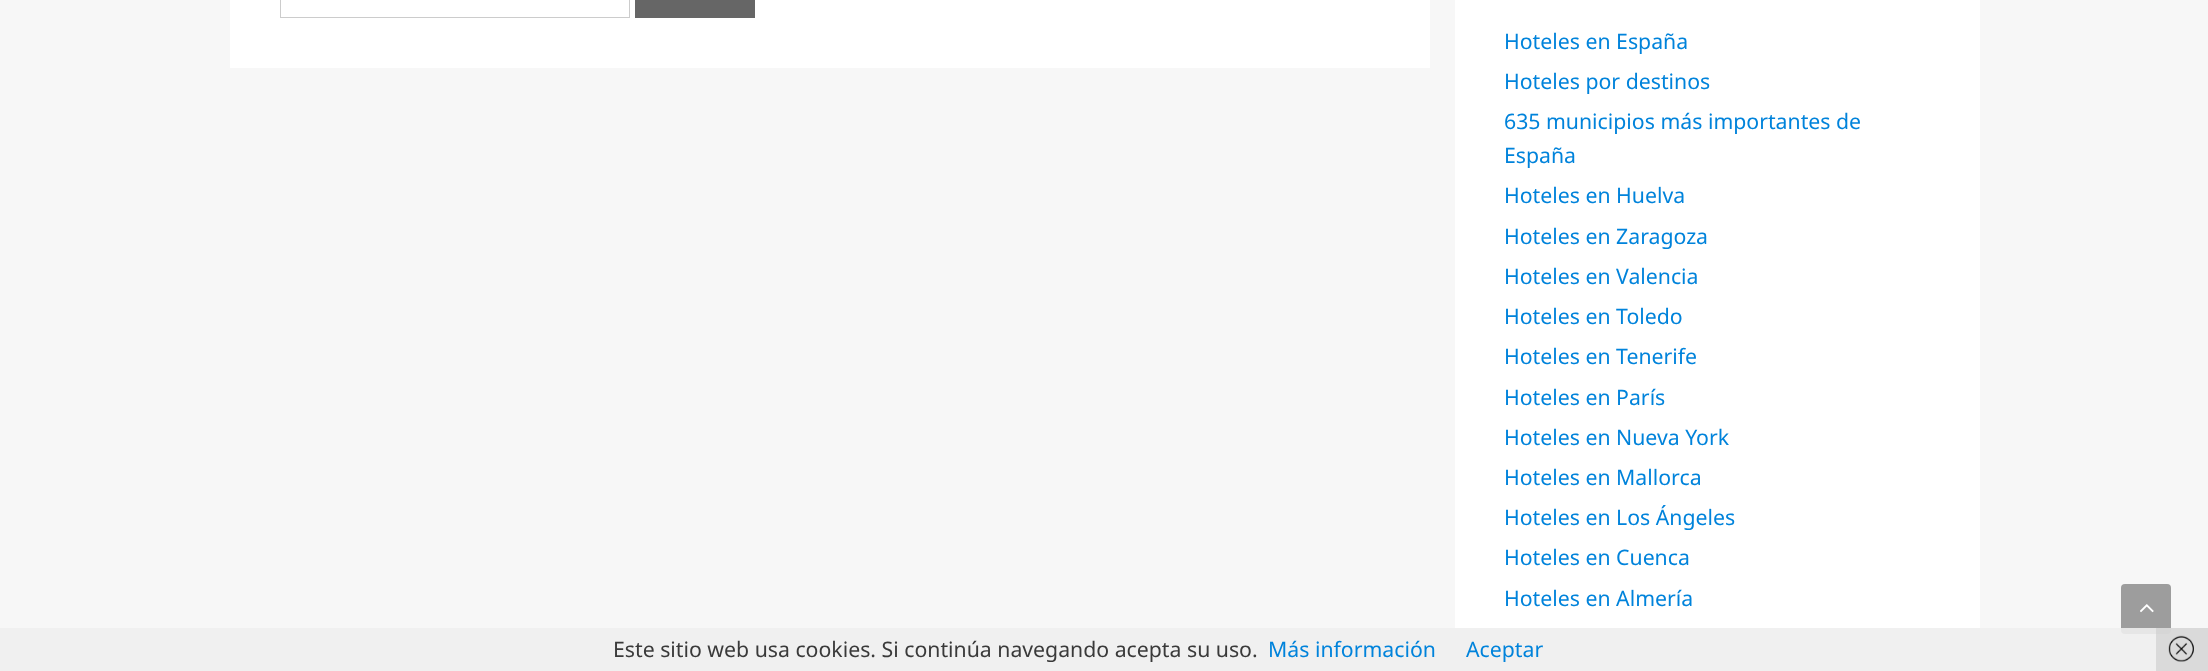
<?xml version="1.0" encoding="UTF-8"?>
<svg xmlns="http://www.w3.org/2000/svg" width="2208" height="671">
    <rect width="100%" height="100%" fill="#F7F7F7"/>
    <rect x="230" y="0" width="1200" height="68" fill="#FFFFFF"/>
    <rect x="280.5" y="-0.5" width="349" height="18" fill="none" stroke="#CCCCCC"/>
    <rect x="635" y="0" width="120" height="18" fill="#666666"/>
    <rect x="1455" y="0" width="525" height="671" fill="#FFFFFF"/>
    <text font-family="Noto Sans" font-size="21.25" fill="#0083DB">
        <tspan x="1504" y="49">Hoteles en España</tspan>
        <tspan x="1504" y="89">Hoteles por destinos</tspan>
        <tspan x="1504" y="129">635 municipios más importantes de</tspan>
        <tspan x="1504" y="163">España</tspan>
        <tspan x="1504" y="203">Hoteles en Huelva</tspan>
        <tspan x="1504" y="244">Hoteles en Zaragoza</tspan>
        <tspan x="1504" y="284">Hoteles en Valencia</tspan>
        <tspan x="1504" y="324">Hoteles en Toledo</tspan>
        <tspan x="1504" y="364">Hoteles en Tenerife</tspan>
        <tspan x="1504" y="405">Hoteles en París</tspan>
        <tspan x="1504" y="445">Hoteles en Nueva York</tspan>
        <tspan x="1504" y="485">Hoteles en Mallorca</tspan>
        <tspan x="1504" y="525">Hoteles en Los Ángeles</tspan>
        <tspan x="1504" y="565">Hoteles en Cuenca</tspan>
        <tspan x="1504" y="606">Hoteles en Almería</tspan>
    </text>
    <rect x="2121" y="584" width="50" height="50" rx="4" fill="#9D9D9D"/>
    <image x="2140" y="604" width="14" height="9" href="img_01.png"/>
    <rect x="0" y="628" width="2208" height="43" fill="#EEEEEE" fill-opacity="0.9"/>
    <text x="613" y="657" font-family="Noto Sans" font-size="21.25" fill="#3A3A3A">Este sitio web usa cookies. Si continúa navegando acepta su uso.</text>
    <text x="1268" y="657" font-family="Noto Sans" font-size="21.25" fill="#0083DB">Más información</text>
    <text x="1466" y="657" font-family="Noto Sans" font-size="21.25" fill="#0083DB">Aceptar</text>
    <rect x="2156" y="628" width="52" height="43" fill="#CCCCCC" fill-opacity="0.6"/>
    <image x="2168" y="635" width="26" height="27" href="img_02.png"/>
</svg>
